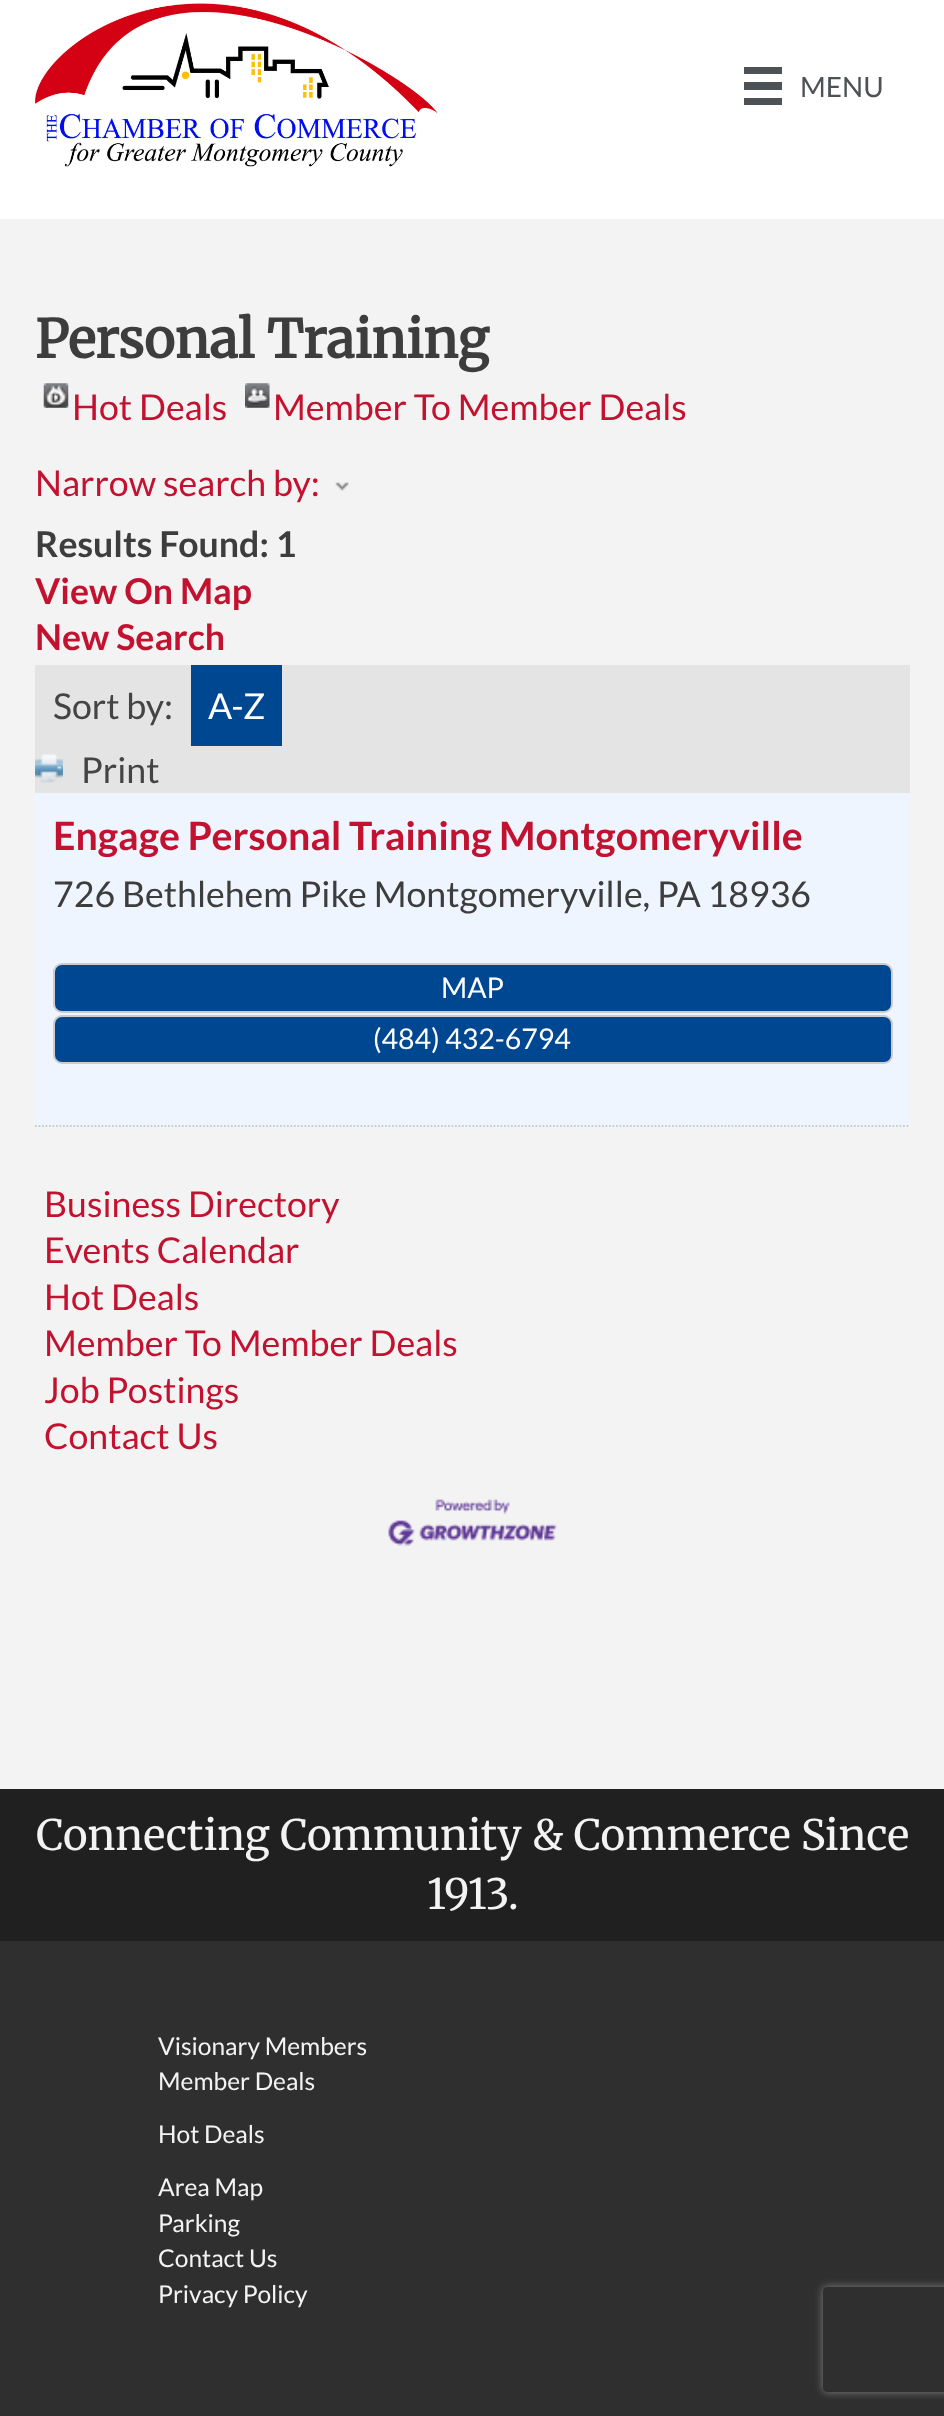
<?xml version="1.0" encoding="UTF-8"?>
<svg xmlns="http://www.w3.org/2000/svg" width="944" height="2416">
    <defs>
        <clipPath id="clip1"><path d="M 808 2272 H 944 V 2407 H 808 Z M 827 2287 H 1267 C 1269 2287 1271 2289 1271 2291 V 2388 C 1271 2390 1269 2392 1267 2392 H 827 C 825 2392 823 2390 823 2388 V 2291 C 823 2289 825 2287 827 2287 Z" clip-rule="evenodd"/></clipPath>
        <filter id="blur1" x="-50%" y="-200%" width="200%" height="500%"><feGaussianBlur stdDeviation="4.5"/></filter>
    </defs>
    <rect width="100%" height="100%" fill="#FFFFFF"/>
    <image x="35" y="3" width="403" height="164" href="img_01.png"/>
    <rect x="744" y="67" width="38" height="7" fill="#4C5256"/>
    <rect x="744" y="82" width="38" height="8" fill="#4C5256"/>
    <rect x="744" y="98" width="38" height="7" fill="#4C5256"/>
    <text x="800" y="97" font-family="Lato" font-size="28" fill="#4C5256">MENU</text>
    <rect x="0" y="219" width="944" height="1570" fill="#F3F3F3"/>
    <text x="35" y="358" font-family="Merriweather" font-size="52.5" font-weight="700" fill="#3D3D3D">Personal Training</text>
    <image x="43" y="383" width="26" height="25" href="img_02.png"/>
    <text x="72" y="420" font-family="Lato" font-size="35.7" fill="#C3122F">Hot Deals</text>
    <image x="245" y="383" width="25" height="25" href="img_03.png"/>
    <text x="273" y="420" font-family="Lato" font-size="35.7" fill="#C3122F">Member To Member Deals</text>
    <text x="35" y="496" font-family="Lato" font-size="35.7" fill="#C3122F">Narrow search by:</text>
    <image x="335" y="482" width="14" height="9" href="img_04.png"/>
    <text x="35" y="557" font-family="Lato" font-size="35.7" font-weight="700" fill="#3D3D3D">Results Found: 1</text>
    <text font-family="Lato" font-size="35.7" font-weight="700" fill="#C3122F">
        <tspan x="35" y="604">View On Map</tspan>
        <tspan x="35" y="650">New Search</tspan>
    </text>
    <rect x="35" y="665" width="875" height="128" fill="#E4E4E4"/>
    <text x="53" y="719" font-family="Lato" font-size="35.7" fill="#444444">Sort by:</text>
    <rect x="191" y="665" width="91" height="81" fill="#004792"/>
    <text x="208" y="719" font-family="Lato" font-size="35.7" fill="#FFFFFF">A-Z</text>
    <image x="35" y="754" width="28" height="29" href="img_05.png"/>
    <text x="81" y="783" font-family="Lato" font-size="35.7" fill="#444444">Print</text>
    <rect x="35" y="793" width="875" height="334" fill="#EEF5FF"/>
    <path d="M 35 1126 H 910" fill="none" stroke="#CCCCCC" stroke-width="1.8" stroke-dasharray="1.75 1.75"/>
    <text x="53" y="850" font-family="Lato" font-size="39.25" font-weight="700" fill="#C3122F">Engage Personal Training Montgomeryville</text>
    <text x="53" y="907" font-family="Lato" font-size="35.7" fill="#3D3D3D">726 Bethlehem Pike Montgomeryville, PA 18936</text>
    <rect x="54" y="964" width="838" height="48" rx="8" fill="#004792" stroke="#CCCCCC" stroke-width="2"/>
    <text x="441" y="998" font-family="Lato" font-size="28.5" fill="#FFFFFF">MAP</text>
    <rect x="54" y="1016" width="838" height="47" rx="8" fill="#004792" stroke="#CCCCCC" stroke-width="2"/>
    <text x="373" y="1049" font-family="Lato" font-size="28.5" fill="#FFFFFF">(484) 432-6794</text>
    <text font-family="Lato" font-size="35.7" fill="#C3122F">
        <tspan x="44" y="1217">Business Directory</tspan>
        <tspan x="44" y="1263">Events Calendar</tspan>
        <tspan x="44" y="1310">Hot Deals</tspan>
        <tspan x="44" y="1356">Member To Member Deals</tspan>
        <tspan x="44" y="1403">Job Postings</tspan>
        <tspan x="44" y="1449">Contact Us</tspan>
    </text>
    <image x="388" y="1499" width="169" height="47" href="img_06.png"/>
    <rect x="0" y="1789" width="944" height="152" fill="#202020"/>
    <text x="36" y="1850" font-family="Merriweather" font-size="42" fill="#F3F3F3">Connecting Community &amp; Commerce Since</text>
    <text x="427" y="1909" font-family="Merriweather" font-size="42" fill="#F3F3F3">1913.</text>
    <rect x="0" y="1941" width="944" height="475" fill="#2F2F2F"/>
    <text font-family="Lato" font-size="24.5" fill="#F3F3F3">
        <tspan x="158" y="2055">Visionary Members</tspan>
        <tspan x="158" y="2090">Member Deals</tspan>
    </text>
    <text x="158" y="2143" font-family="Lato" font-size="24.5" fill="#F3F3F3">Hot Deals</text>
    <text font-family="Lato" font-size="24.5" fill="#F3F3F3">
        <tspan x="158" y="2196">Area Map</tspan>
        <tspan x="158" y="2232">Parking</tspan>
        <tspan x="158" y="2267">Contact Us</tspan>
        <tspan x="158" y="2303">Privacy Policy</tspan>
    </text>
    <g clip-path="url(#clip1)">
        <rect x="823" y="2287" width="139" height="105" rx="4" fill="#808080" filter="url(#blur1)"/>
    </g>
</svg>
